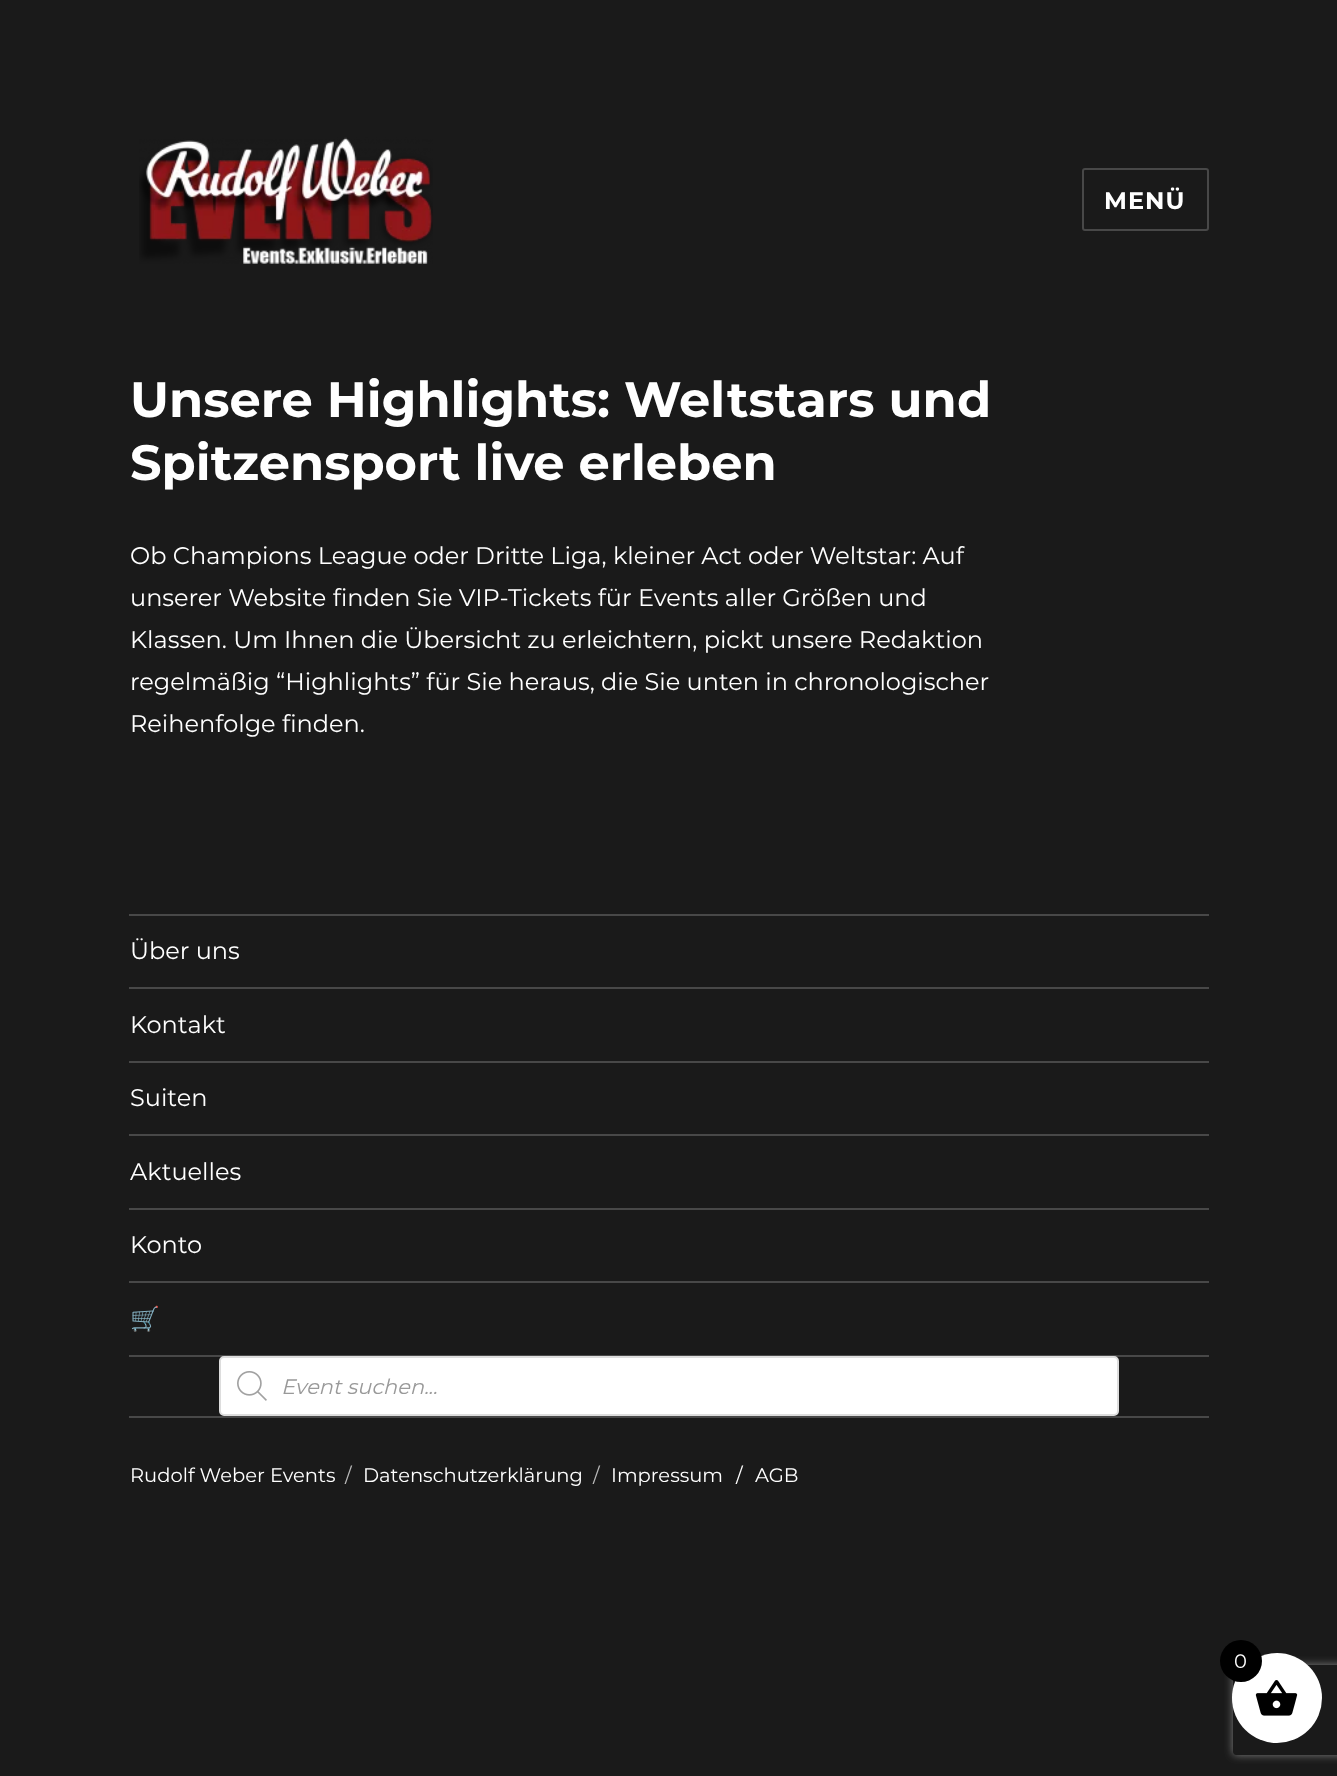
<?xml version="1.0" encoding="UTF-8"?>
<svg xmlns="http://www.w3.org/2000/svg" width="1337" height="1776">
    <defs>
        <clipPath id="clip1"><path d="M 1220 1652 H 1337 V 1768 H 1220 Z M 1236 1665 H 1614 C 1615.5 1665 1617 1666.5 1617 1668 V 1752 C 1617 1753.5 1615.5 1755 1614 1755 H 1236 C 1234.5 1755 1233 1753.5 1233 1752 V 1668 C 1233 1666.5 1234.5 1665 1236 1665 Z" clip-rule="evenodd"/></clipPath>
        <filter id="blur1" x="-50%" y="-200%" width="200%" height="500%"><feGaussianBlur stdDeviation="4"/></filter>
    </defs>
    <rect width="100%" height="100%" fill="#1A1A1A"/>
    <image x="139" y="137" width="294" height="127" href="img_01.png"/>
    <rect x="1083" y="169" width="125" height="61" rx="2" fill="none" stroke="#484848" stroke-width="2"/>
    <text x="1104" y="209" font-family="Montserrat" font-size="24" font-weight="100" letter-spacing="1" fill="#FFFFFF">MENÜ</text>
    <text font-family="Montserrat" font-size="49.5" font-weight="100" fill="#FFFFFF">
        <tspan x="130" y="417">Unsere Highlights: Weltstars und</tspan>
        <tspan x="130" y="480">Spitzensport live erleben</tspan>
    </text>
    <text font-family="'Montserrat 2'" font-size="24" font-weight="100" fill="#FFFFFF">
        <tspan x="130" y="564">Ob Champions League oder Dritte Liga, kleiner Act oder Weltstar: Auf</tspan>
        <tspan x="130" y="606">unserer Website finden Sie VIP-Tickets für Events aller Größen und</tspan>
        <tspan x="130" y="648">Klassen. Um Ihnen die Übersicht zu erleichtern, pickt unsere Redaktion</tspan>
        <tspan x="130" y="690">regelmäßig “Highlights” für Sie heraus, die Sie unten in chronologischer</tspan>
        <tspan x="130" y="732">Reihenfolge finden.</tspan>
    </text>
    <rect x="129" y="1416" width="1080" height="2" fill="#484848"/>
    <rect x="129" y="914" width="1080" height="2" fill="#484848"/>
    <text x="130" y="959" font-family="'Montserrat 2'" font-size="24" font-weight="100" fill="#FFFFFF">Über uns</text>
    <rect x="129" y="987" width="1080" height="2" fill="#484848"/>
    <text x="130" y="1033" font-family="'Montserrat 2'" font-size="24" font-weight="100" fill="#FFFFFF">Kontakt</text>
    <rect x="129" y="1061" width="1080" height="2" fill="#484848"/>
    <text x="130" y="1106" font-family="'Montserrat 2'" font-size="24" font-weight="100" fill="#FFFFFF">Suiten</text>
    <rect x="129" y="1134" width="1080" height="2" fill="#484848"/>
    <text x="130" y="1180" font-family="'Montserrat 2'" font-size="24" font-weight="100" fill="#FFFFFF">Aktuelles</text>
    <rect x="129" y="1208" width="1080" height="2" fill="#484848"/>
    <text x="130" y="1253" font-family="'Montserrat 2'" font-size="24" font-weight="100" fill="#FFFFFF">Konto</text>
    <rect x="129" y="1281" width="1080" height="2" fill="#484848"/>
    <text x="130" y="1327" font-family="Noto Color Emoji" font-size="24" fill="#FFFFFF">🛒</text>
    <rect x="129" y="1355" width="1080" height="2" fill="#484848"/>
    <rect x="220" y="1357" width="898" height="58" rx="4" fill="#FFFFFF" stroke="#DDDDDD" stroke-width="2"/>
    <image x="237" y="1371" width="30" height="30" href="img_02.png"/>
    <text x="281" y="1394" font-family="Montserrat" font-size="21" font-weight="100" font-style="italic" fill="#999999">Event suchen...</text>
    <text x="130" y="1482" font-family="'Montserrat 2'" font-size="19.5" font-weight="100" fill="#FFFFFF">Rudolf Weber Events</text>
    <text x="345" y="1482" font-family="'Montserrat 2'" font-size="19.5" font-weight="100" fill="#BABABA">/</text>
    <text x="363" y="1482" font-family="'Montserrat 2'" font-size="19.5" font-weight="100" fill="#FFFFFF">Datenschutzerklärung</text>
    <text x="593" y="1482" font-family="'Montserrat 2'" font-size="19.5" font-weight="100" fill="#BABABA">/</text>
    <text x="611" y="1482" font-family="'Montserrat 2'" font-size="19.5" font-weight="100" fill="#FFFFFF">Impressum</text>
    <text x="736" y="1482" font-family="'Montserrat 2'" font-size="19.5" font-weight="100" fill="#FFFFFF">/</text>
    <text x="755" y="1482" font-family="'Montserrat 2'" font-size="19.5" font-weight="100" fill="#FFFFFF">AGB</text>
    <g clip-path="url(#clip1)">
        <rect x="1233" y="1665" width="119" height="90" rx="3" fill="#808080" filter="url(#blur1)"/>
    </g>
    <circle cx="1277" cy="1698" r="45" fill="#FFFFFF"/>
    <image x="1255" y="1680" width="43" height="36" href="img_03.png"/>
    <circle cx="1241" cy="1661" r="21" fill="#000000"/>
    <text x="1234" y="1668" font-family="'Montserrat 2'" font-size="19.5" font-weight="100" fill="#FFFFFF">0</text>
</svg>
